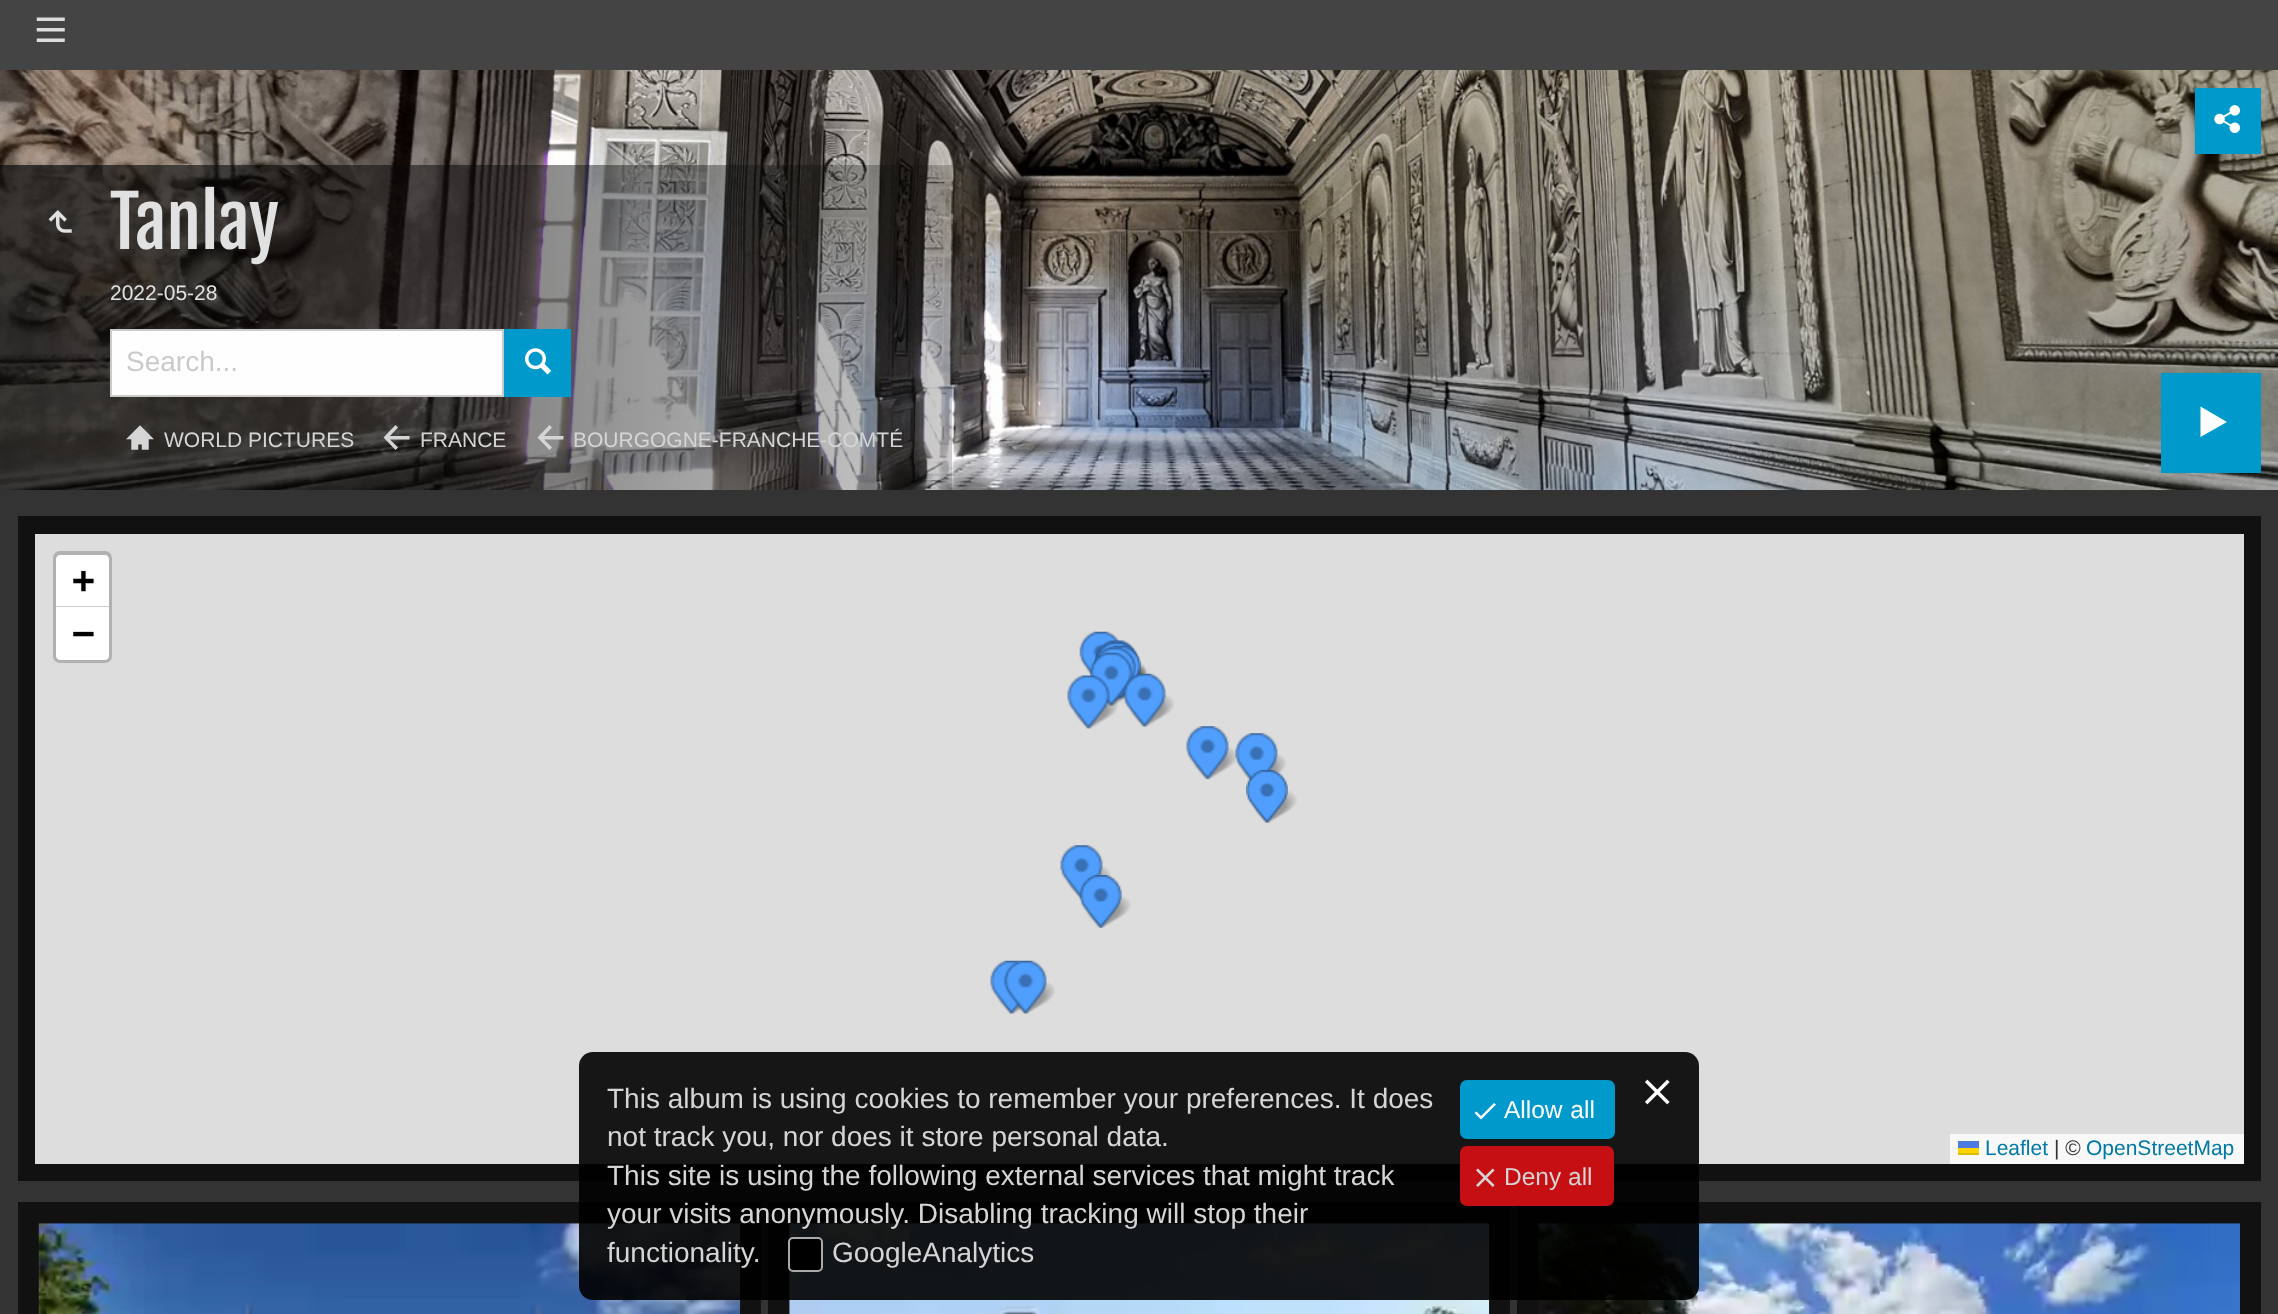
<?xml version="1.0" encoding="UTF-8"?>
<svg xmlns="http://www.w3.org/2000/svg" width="2278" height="1314">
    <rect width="100%" height="100%" fill="#333333"/>
    <rect x="0" y="0" width="2278" height="70" fill="#444444"/>
    <image x="36" y="17" width="29" height="25" href="img_01.png"/>
    <image x="0" y="70" width="2278" height="420" href="img_02.png"/>
    <image x="48" y="210" width="24" height="23" href="img_03.png"/>
    <text x="110" y="249" font-family="Fjalla One" font-size="70" fill="#E1E1E1">Tanlay</text>
    <text x="110" y="300" font-family="Liberation Sans" font-size="21" fill="#E1E1E1">2022-05-28</text>
    <rect x="111" y="330" width="392" height="66" fill="#FEFEFE" stroke="#CACACA" stroke-width="2"/>
    <text x="126" y="371" font-family="Liberation Sans" font-size="28" fill="#CACACA">Search...</text>
    <rect x="504" y="329" width="67" height="68" fill="#0099CC"/>
    <image x="525" y="348" width="27" height="27" href="img_04.png"/>
    <image x="126" y="425" width="28" height="25" href="img_05.png"/>
    <text x="164" y="447" font-family="Liberation Sans" font-size="21" fill="#D5D5D5">WORLD PICTURES</text>
    <path d="M 395.5 450 L 383.5 437.5 L 395.5 425 L 398 427.5 L 390 436 H 409.5 V 439.5 H 390 L 398 447.5 Z" fill="#D5D5D5"/>
    <text x="420" y="447" font-family="Liberation Sans" font-size="21" fill="#D5D5D5">FRANCE</text>
    <path d="M 549.5 450 L 537.5 437.5 L 549.5 425 L 552 427.5 L 544 436 H 563.5 V 439.5 H 544 L 552 447.5 Z" fill="#D5D5D5"/>
    <text x="573" y="447" font-family="Liberation Sans" font-size="21" fill="#D5D5D5">BOURGOGNE-FRANCHE-COMTÉ</text>
    <rect x="2195" y="88" width="66" height="66" fill="#0099CC"/>
    <image x="2214" y="105" width="26" height="28" href="img_06.png"/>
    <rect x="2161" y="373" width="100" height="100" fill="#0099CC"/>
    <path d="M 2200.5 406.5 L 2227 422 L 2200.5 437 Z" fill="#FFFFFF"/>
    <rect x="18" y="516" width="2243" height="665" fill="#111111"/>
    <rect x="35" y="534" width="2209" height="630" fill="#DDDDDD"/>
    <rect x="55" y="553" width="55" height="108" rx="5" fill="none" stroke="#B1B1B1" stroke-width="4"/>
    <path d="M 60 555 H 105 C 107 555 109 557 109 559 V 607 H 56 V 559 C 56 557 58 555 60 555 Z" fill="#FFFFFF"/>
    <rect x="56" y="606" width="53" height="1" fill="#CCCCCC"/>
    <text x="72" y="593" font-family="DejaVu Sans Mono" font-size="38" font-weight="700" fill="#000000">+</text>
    <path d="M 56 607 H 109 V 656 C 109 658 107 660 105 660 H 60 C 58 660 56 658 56 656 Z" fill="#FFFFFF"/>
    <text x="72" y="646" font-family="DejaVu Sans Mono" font-size="38" font-weight="700" fill="#000000">−</text>
    <rect x="1950" y="1134" width="294" height="30" fill="#F8F8F8"/>
    <text x="1985" y="1155" font-family="Liberation Sans" font-size="21" fill="#0078A8">Leaflet</text>
    <rect x="1958" y="1141" width="21" height="7" fill="#4C7BE1"/>
    <rect x="1958" y="1148" width="21" height="5" fill="#FFD500"/>
    <rect x="1958" y="1153" width="21" height="2" fill="#E0BC00"/>
    <text x="2054" y="1155" font-family="Liberation Sans" font-size="21" fill="#333333">| ©</text>
    <text x="2086" y="1155" font-family="Liberation Sans" font-size="21" fill="#0078A8">OpenStreetMap</text>
    <image x="1087" y="663" width="8" height="16" href="img_23.png"/>
    <image x="1105" y="675" width="33" height="31" href="img_29.png"/>
    <image x="1113" y="669" width="32" height="32" href="img_28.png"/>
    <image x="1130" y="694" width="44" height="33" href="img_31.png"/>
    <image x="1116" y="666" width="34" height="33" href="img_27.png"/>
    <image x="1117" y="663" width="29" height="32" href="img_25.png"/>
    <image x="1117" y="663" width="29" height="32" href="img_26.png"/>
    <image x="1079" y="631" width="42" height="48" href="img_07.png"/>
    <image x="1124" y="661" width="22" height="30" href="img_24.png"/>
    <image x="1095" y="640" width="43" height="54" href="img_08.png"/>
    <image x="1095" y="642" width="43" height="54" href="img_09.png"/>
    <image x="1095" y="642" width="43" height="54" href="img_10.png"/>
    <image x="1074" y="696" width="44" height="33" href="img_30.png"/>
    <image x="1100" y="645" width="41" height="54" href="img_11.png"/>
    <image x="1093" y="647" width="43" height="54" href="img_12.png"/>
    <image x="1090" y="652" width="43" height="54" href="img_14.png"/>
    <image x="1067" y="675" width="43" height="54" href="img_13.png"/>
    <image x="1123" y="673" width="43" height="54" href="img_15.png"/>
    <image x="1193" y="746" width="44" height="34" href="img_32.png"/>
    <image x="1186" y="726" width="43" height="54" href="img_16.png"/>
    <image x="1242" y="753" width="44" height="28" href="img_33.png"/>
    <image x="1235" y="733" width="43" height="48" href="img_17.png"/>
    <image x="1253" y="790" width="44" height="33" href="img_34.png"/>
    <image x="1246" y="770" width="42" height="53" href="img_18.png"/>
    <image x="1067" y="865" width="44" height="34" href="img_32.png"/>
    <image x="1087" y="895" width="44" height="33" href="img_35.png"/>
    <image x="1060" y="845" width="43" height="54" href="img_19.png"/>
    <image x="1079" y="875" width="43" height="53" href="img_20.png"/>
    <image x="997" y="991" width="44" height="23" href="img_37.png"/>
    <image x="1016" y="981" width="39" height="33" href="img_36.png"/>
    <image x="990" y="960" width="36" height="54" href="img_21.png"/>
    <image x="1004" y="960" width="43" height="54" href="img_22.png"/>
    <rect x="18" y="1202" width="743" height="112" fill="#111111"/>
    <image x="38" y="1223" width="703" height="91" href="img_38.png"/>
    <rect x="768" y="1202" width="742" height="112" fill="#111111"/>
    <image x="789" y="1223" width="701" height="91" href="img_39.png"/>
    <rect x="1517" y="1202" width="744" height="112" fill="#111111"/>
    <image x="1538" y="1223" width="702" height="91" href="img_40.png"/>
    <rect x="579" y="1052" width="1120" height="248" rx="14" fill="#000000" fill-opacity="0.9"/>
    <text font-family="Liberation Sans" font-size="28" fill="#D5D5D5">
        <tspan x="607" y="1108">This album is using cookies to remember your preferences. It does</tspan>
        <tspan x="607" y="1146">not track you, nor does it store personal data.</tspan>
        <tspan x="607" y="1185">This site is using the following external services that might track</tspan>
        <tspan x="607" y="1223">your visits anonymously. Disabling tracking will stop their</tspan>
        <tspan x="607" y="1262">functionality.</tspan>
    </text>
    <rect x="789" y="1238" width="33" height="33" rx="4" fill="#000000" stroke="#AAAAAA" stroke-width="2"/>
    <text x="832" y="1262" font-family="Liberation Sans" font-size="28" fill="#D5D5D5">GoogleAnalytics</text>
    <rect x="1460" y="1080" width="155" height="59" rx="7" fill="#0099CC"/>
    <path d="M 1481 1116 L 1476.5 1111.5 L 1474.5 1113 L 1481 1119.5 L 1496 1104.5 L 1494 1103 Z" fill="#FFFFFF"/>
    <text x="1504" y="1118" word-spacing="1" font-family="Liberation Sans" font-size="24.5" fill="#FFFFFF">Allow all</text>
    <rect x="1460" y="1146" width="154" height="60" rx="7" fill="#C60F13"/>
    <image x="1476" y="1168" width="19" height="19" href="img_41.png"/>
    <text x="1504" y="1185" font-family="Liberation Sans" font-size="24.5" fill="#D5D5D5">Deny all</text>
    <image x="1645" y="1079" width="25" height="26" href="img_42.png"/>
</svg>
